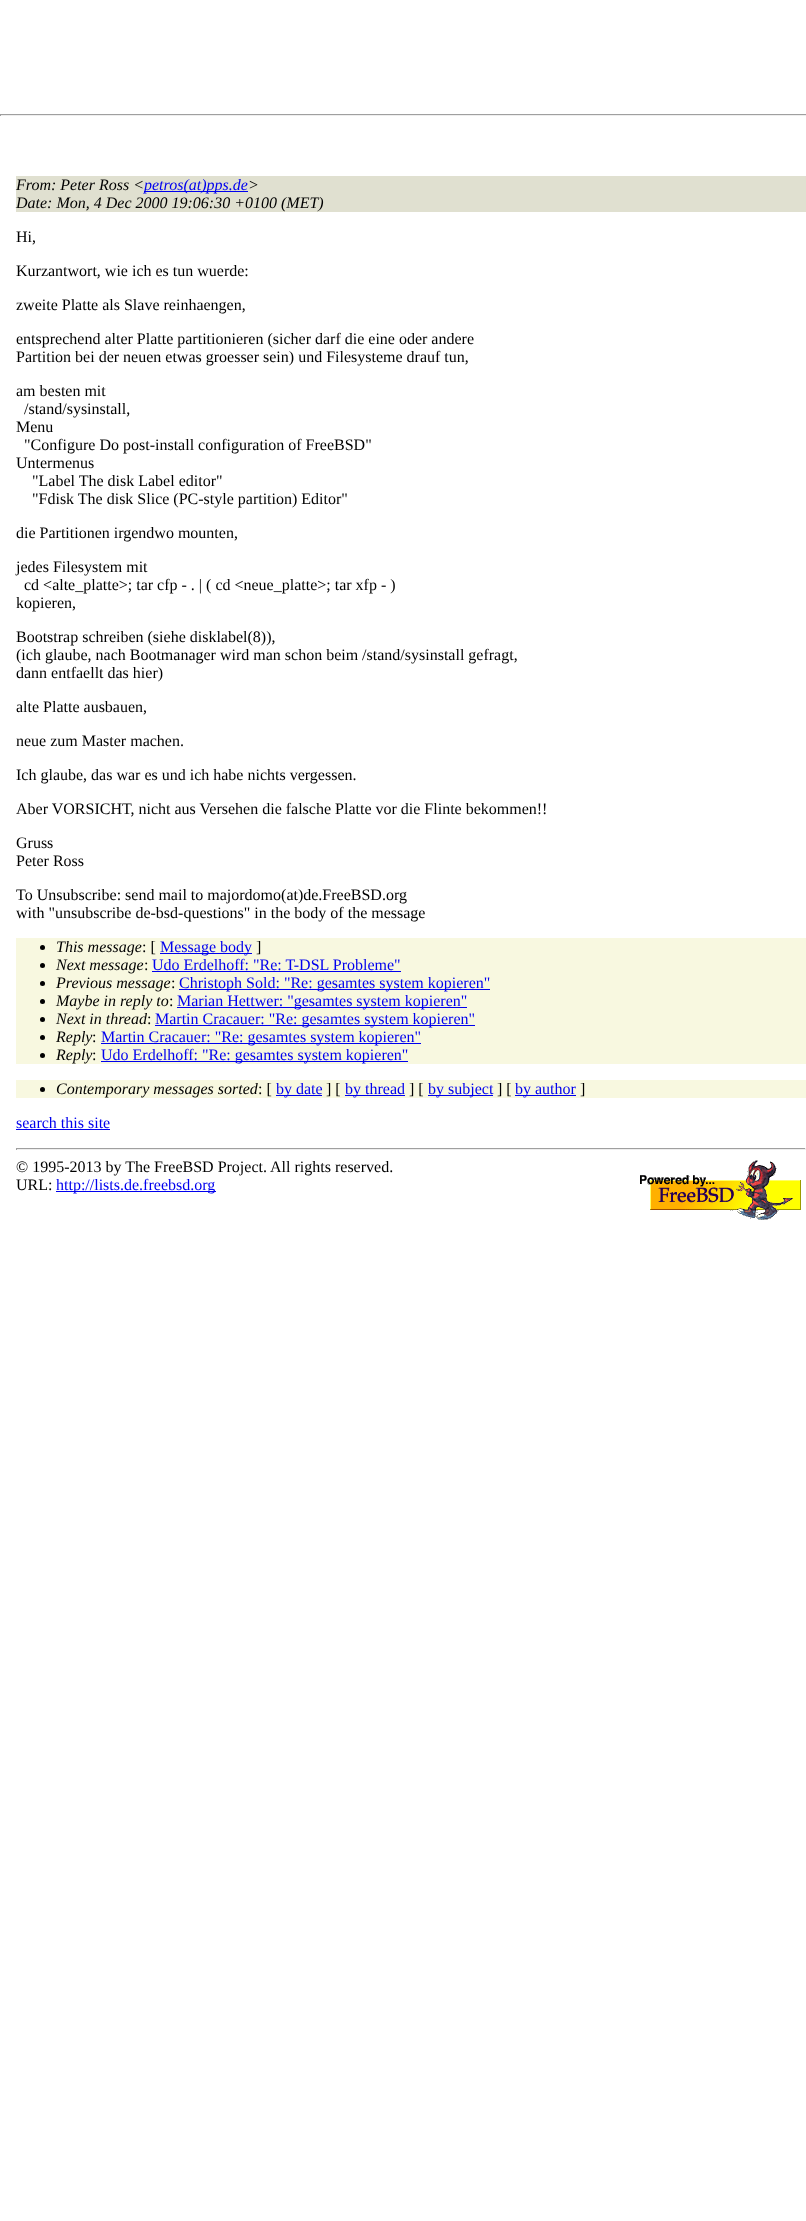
<?xml version="1.0" encoding="UTF-8"?>
<svg xmlns="http://www.w3.org/2000/svg" width="806" height="2221">
    <rect width="100%" height="100%" fill="#FFFFFF"/>
    <rect x="0" y="114" width="806" height="1" fill="#9F9F9F"/>
    <rect x="0" y="115" width="806" height="1" fill="#EEEEEE"/>
    <rect x="0" y="114" width="1" height="2" fill="#9F9F9F"/>
    <rect x="16" y="176" width="790" height="36" fill="#E0E0D0"/>
    <text x="16" y="190" font-family="Liberation Serif" font-size="16" font-style="italic" fill="#000000">From: Peter Ross &lt;</text>
    <rect x="144" y="191" width="104" height="1" fill="#0000EE"/>
    <text x="144" y="190" font-family="Liberation Serif" font-size="16" font-style="italic" fill="#0000EE">petros(at)pps.de</text>
    <text x="248" y="190" font-family="Liberation Serif" font-size="16" font-style="italic" fill="#000000">&gt;</text>
    <text x="16" y="208" font-family="Liberation Serif" font-size="16" font-style="italic" fill="#000000">Date: Mon, 4 Dec 2000 19:06:30 +0100 (MET)</text>
    <text x="16" y="242" font-family="Liberation Serif" font-size="16" fill="#000000">Hi,</text>
    <text x="16" y="276" font-family="Liberation Serif" font-size="16" fill="#000000">Kurzantwort, wie ich es tun wuerde:</text>
    <text x="16" y="310" font-family="Liberation Serif" font-size="16" fill="#000000">zweite Platte als Slave reinhaengen,</text>
    <text font-family="Liberation Serif" font-size="16" fill="#000000">
        <tspan x="16" y="344">entsprechend alter Platte partitionieren (sicher darf die eine oder andere</tspan>
        <tspan x="16" y="362">Partition bei der neuen etwas groesser sein) und Filesysteme drauf tun,</tspan>
    </text>
    <text x="16" y="396" font-family="Liberation Serif" font-size="16" fill="#000000">am besten mit</text>
    <text x="24" y="414" font-family="Liberation Serif" font-size="16" fill="#000000">/stand/sysinstall,</text>
    <text x="16" y="432" font-family="Liberation Serif" font-size="16" fill="#000000">Menu</text>
    <text x="24" y="450" font-family="Liberation Serif" font-size="16" fill="#000000">"Configure Do post-install configuration of FreeBSD"</text>
    <text x="16" y="468" font-family="Liberation Serif" font-size="16" fill="#000000">Untermenus</text>
    <text font-family="Liberation Serif" font-size="16" fill="#000000">
        <tspan x="32" y="486">"Label The disk Label editor"</tspan>
        <tspan x="32" y="504">"Fdisk The disk Slice (PC-style partition) Editor"</tspan>
    </text>
    <text x="16" y="538" font-family="Liberation Serif" font-size="16" fill="#000000">die Partitionen irgendwo mounten,</text>
    <text x="16" y="572" font-family="Liberation Serif" font-size="16" fill="#000000">jedes Filesystem mit</text>
    <text x="24" y="590" font-family="Liberation Serif" font-size="16" fill="#000000">cd &lt;alte_platte&gt;; tar cfp - . | ( cd &lt;neue_platte&gt;; tar xfp - )</text>
    <text x="16" y="608" font-family="Liberation Serif" font-size="16" fill="#000000">kopieren,</text>
    <text font-family="Liberation Serif" font-size="16" fill="#000000">
        <tspan x="16" y="642">Bootstrap schreiben (siehe disklabel(8)),</tspan>
        <tspan x="16" y="660">(ich glaube, nach Bootmanager wird man schon beim /stand/sysinstall gefragt,</tspan>
        <tspan x="16" y="678">dann entfaellt das hier)</tspan>
    </text>
    <text x="16" y="712" font-family="Liberation Serif" font-size="16" fill="#000000">alte Platte ausbauen,</text>
    <text x="16" y="746" font-family="Liberation Serif" font-size="16" fill="#000000">neue zum Master machen.</text>
    <text x="16" y="780" font-family="Liberation Serif" font-size="16" fill="#000000">Ich glaube, das war es und ich habe nichts vergessen.</text>
    <text x="16" y="814" font-family="Liberation Serif" font-size="16" fill="#000000">Aber VORSICHT, nicht aus Versehen die falsche Platte vor die Flinte bekommen!!</text>
    <text font-family="Liberation Serif" font-size="16" fill="#000000">
        <tspan x="16" y="848">Gruss</tspan>
        <tspan x="16" y="866">Peter Ross</tspan>
    </text>
    <text font-family="Liberation Serif" font-size="16" fill="#000000">
        <tspan x="16" y="900">To Unsubscribe: send mail to majordomo(at)de.FreeBSD.org</tspan>
        <tspan x="16" y="918">with "unsubscribe de-bsd-questions" in the body of the message</tspan>
    </text>
    <rect x="16" y="938" width="790" height="126" fill="#F8F8E0"/>
    <circle cx="42.5" cy="947.5" r="2.5" fill="#000000"/>
    <text x="56" y="952" font-family="Liberation Serif" font-size="16" font-style="italic" fill="#000000">This message</text>
    <text x="142" y="952" font-family="Liberation Serif" font-size="16" fill="#000000">: [</text>
    <rect x="160" y="953" width="92" height="1" fill="#0000EE"/>
    <text x="160" y="952" font-family="Liberation Serif" font-size="16" fill="#0000EE">Message body</text>
    <text x="256" y="952" font-family="Liberation Serif" font-size="16" fill="#000000">]</text>
    <circle cx="42.5" cy="965.5" r="2.5" fill="#000000"/>
    <text x="56" y="970" font-family="Liberation Serif" font-size="16" font-style="italic" fill="#000000">Next message</text>
    <text x="144" y="970" font-family="Liberation Serif" font-size="16" fill="#000000">:</text>
    <text x="152" y="970" font-family="Liberation Serif" font-size="16" fill="#0000EE">Udo Erdelhoff: "Re: T-DSL Probleme"</text>
    <rect x="152" y="971" width="249" height="1" fill="#0000EE"/>
    <circle cx="42.5" cy="983.5" r="2.5" fill="#000000"/>
    <text x="56" y="988" font-family="Liberation Serif" font-size="16" font-style="italic" fill="#000000">Previous message</text>
    <text x="171" y="988" font-family="Liberation Serif" font-size="16" fill="#000000">:</text>
    <rect x="179" y="989" width="311" height="1" fill="#0000EE"/>
    <text x="179" y="988" font-family="Liberation Serif" font-size="16" fill="#0000EE">Christoph Sold: "Re: gesamtes system kopieren"</text>
    <circle cx="42.5" cy="1001.5" r="2.5" fill="#000000"/>
    <text x="56" y="1006" font-family="Liberation Serif" font-size="16" font-style="italic" fill="#000000">Maybe in reply to</text>
    <text x="169" y="1006" font-family="Liberation Serif" font-size="16" fill="#000000">:</text>
    <rect x="177" y="1007" width="290" height="1" fill="#0000EE"/>
    <text x="177" y="1006" font-family="Liberation Serif" font-size="16" fill="#0000EE">Marian Hettwer: "gesamtes system kopieren"</text>
    <circle cx="42.5" cy="1019.5" r="2.5" fill="#000000"/>
    <text x="56" y="1024" font-family="Liberation Serif" font-size="16" font-style="italic" fill="#000000">Next in thread</text>
    <text x="147" y="1024" font-family="Liberation Serif" font-size="16" fill="#000000">:</text>
    <rect x="155" y="1025" width="320" height="1" fill="#0000EE"/>
    <text x="155" y="1024" font-family="Liberation Serif" font-size="16" fill="#0000EE">Martin Cracauer: "Re: gesamtes system kopieren"</text>
    <circle cx="42.5" cy="1037.5" r="2.5" fill="#000000"/>
    <text x="56" y="1042" font-family="Liberation Serif" font-size="16" font-style="italic" fill="#000000">Reply</text>
    <text x="92" y="1042" font-family="Liberation Serif" font-size="16" fill="#000000">:</text>
    <rect x="101" y="1043" width="320" height="1" fill="#0000EE"/>
    <text x="101" y="1042" font-family="Liberation Serif" font-size="16" fill="#0000EE">Martin Cracauer: "Re: gesamtes system kopieren"</text>
    <circle cx="42.5" cy="1055.5" r="2.5" fill="#000000"/>
    <text x="56" y="1060" font-family="Liberation Serif" font-size="16" font-style="italic" fill="#000000">Reply</text>
    <text x="92" y="1060" font-family="Liberation Serif" font-size="16" fill="#000000">:</text>
    <rect x="101" y="1061" width="307" height="1" fill="#0000EE"/>
    <text x="101" y="1060" font-family="Liberation Serif" font-size="16" fill="#0000EE">Udo Erdelhoff: "Re: gesamtes system kopieren"</text>
    <rect x="16" y="1080" width="790" height="18" fill="#F8F8E0"/>
    <circle cx="42.5" cy="1089.5" r="2.5" fill="#000000"/>
    <text x="56" y="1094" font-family="Liberation Serif" font-size="16" font-style="italic" fill="#000000">Contemporary messages sorted</text>
    <text x="258" y="1094" font-family="Liberation Serif" font-size="16" fill="#000000">: [</text>
    <rect x="276" y="1095" width="46" height="1" fill="#0000EE"/>
    <text x="276" y="1094" font-family="Liberation Serif" font-size="16" fill="#0000EE">by date</text>
    <text x="326" y="1094" font-family="Liberation Serif" font-size="16" fill="#000000">] [</text>
    <rect x="345" y="1095" width="60" height="1" fill="#0000EE"/>
    <text x="345" y="1094" font-family="Liberation Serif" font-size="16" fill="#0000EE">by thread</text>
    <text x="409" y="1094" font-family="Liberation Serif" font-size="16" fill="#000000">] [</text>
    <rect x="428" y="1095" width="65" height="1" fill="#0000EE"/>
    <text x="428" y="1094" font-family="Liberation Serif" font-size="16" fill="#0000EE">by subject</text>
    <text x="497" y="1094" font-family="Liberation Serif" font-size="16" fill="#000000">] [</text>
    <rect x="515" y="1095" width="61" height="1" fill="#0000EE"/>
    <text x="515" y="1094" font-family="Liberation Serif" font-size="16" fill="#0000EE">by author</text>
    <text x="580" y="1094" font-family="Liberation Serif" font-size="16" fill="#000000">]</text>
    <text x="16" y="1128" font-family="Liberation Serif" font-size="16" fill="#0000EE">search this site</text>
    <rect x="16" y="1129" width="94" height="1" fill="#0000EE"/>
    <rect x="16" y="1148" width="790" height="1" fill="#9F9F9F"/>
    <rect x="805" y="1148" width="1" height="2" fill="#EEEEEE"/>
    <rect x="16" y="1149" width="790" height="1" fill="#EEEEEE"/>
    <rect x="16" y="1148" width="1" height="2" fill="#9F9F9F"/>
    <text x="16" y="1172" font-family="Liberation Serif" font-size="16" fill="#000000">© 1995-2013 by The FreeBSD Project. All rights reserved.</text>
    <image x="640" y="1160" width="161" height="60" href="img_01.png"/>
    <text x="16" y="1190" font-family="Liberation Serif" font-size="16" fill="#000000">URL:</text>
    <rect x="56" y="1191" width="160" height="1" fill="#0000EE"/>
    <text x="56" y="1190" font-family="Liberation Serif" font-size="16" fill="#0000EE">http://lists.de.freebsd.org</text>
</svg>
